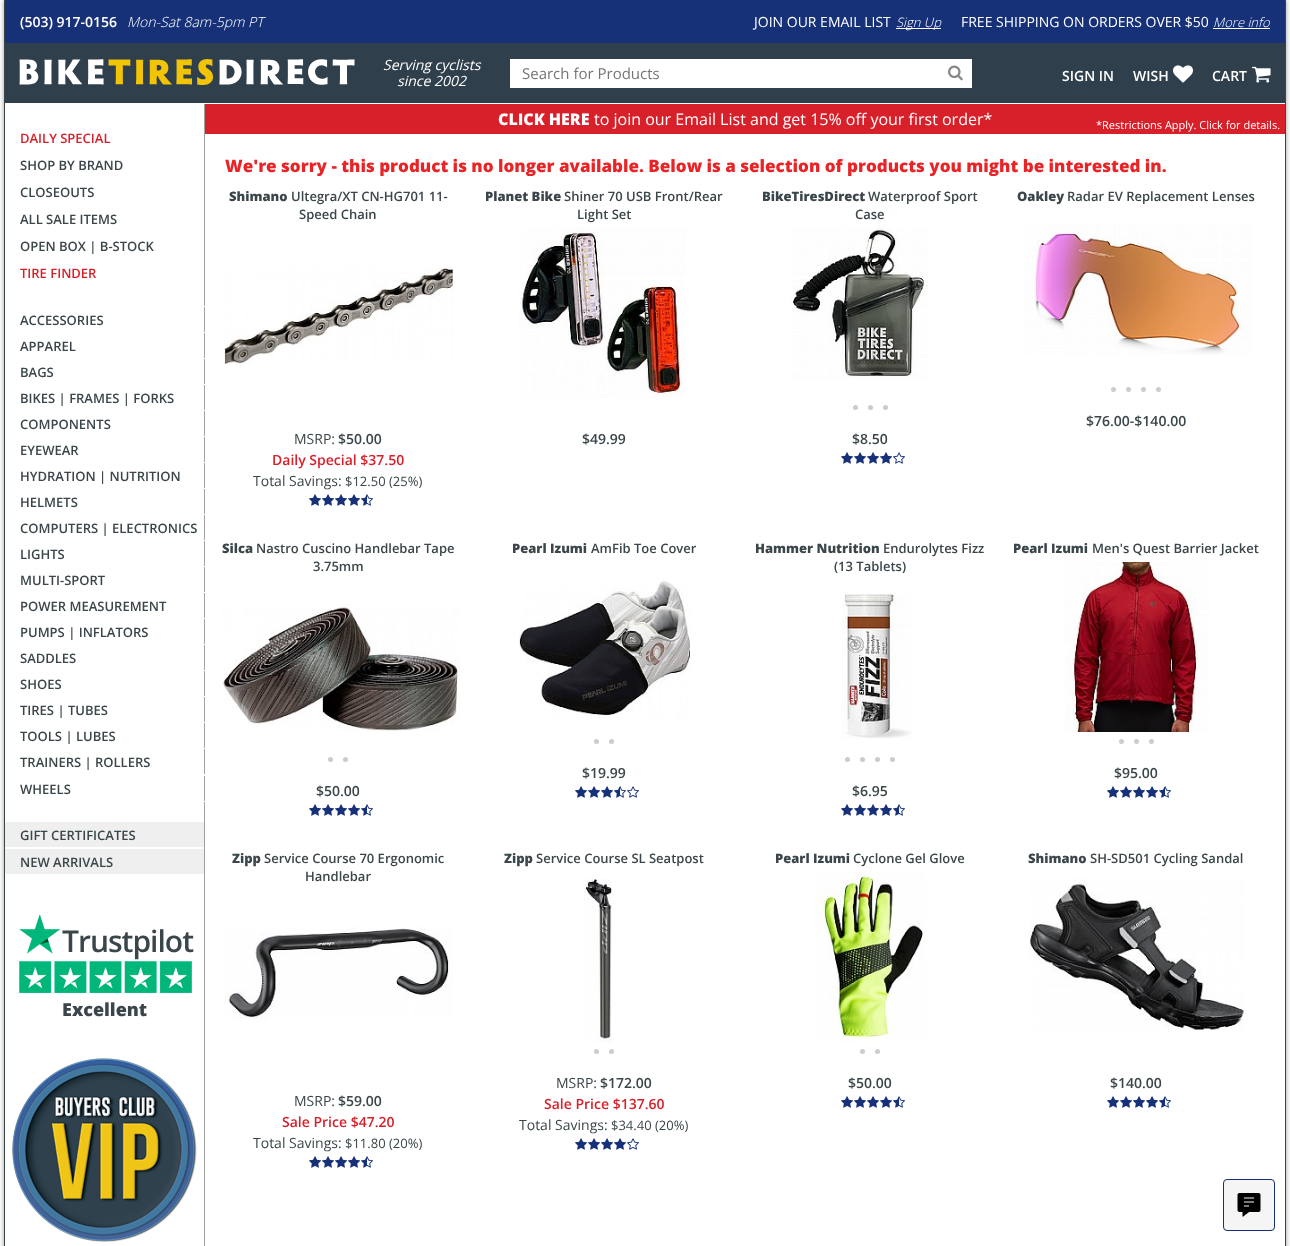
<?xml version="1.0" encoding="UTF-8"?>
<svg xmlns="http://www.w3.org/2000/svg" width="1290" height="1246">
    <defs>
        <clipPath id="clip1"><path d="M 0 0 H 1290 V 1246 H 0 Z M 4 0 H 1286 V 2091 H 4 Z" clip-rule="evenodd"/></clipPath>
        <filter id="blur1" x="-50%" y="-200%" width="200%" height="500%"><feGaussianBlur stdDeviation="2.5"/></filter>
    </defs>
    <rect width="100%" height="100%" fill="#FFFFFF"/>
    <g clip-path="url(#clip1)">
        <rect x="4" y="0" width="1282" height="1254" fill="#000000" fill-opacity="0.4" filter="url(#blur1)"/>
    </g>
    <rect x="1285" y="0" width="1" height="1246" fill="#3B464A"/>
    <rect x="4" y="0" width="1" height="1246" fill="#3B464A"/>
    <rect x="5" y="0" width="1280" height="43" fill="#163178"/>
    <text x="20" y="27" font-family="Open Sans" font-size="14" font-weight="600" fill="#FFFFFF">(503) 917-0156</text>
    <text x="127" y="27" font-family="Open Sans" font-size="14" font-weight="300" font-style="italic" fill="#FFFFFF">Mon-Sat 8am-5pm PT</text>
    <text x="754" y="27" font-family="Open Sans" font-size="14" fill="#FFFFFF">JOIN OUR EMAIL LIST</text>
    <rect x="896" y="28" width="45" height="1" fill="#FFFFFF"/>
    <text x="896" y="27" font-family="Open Sans" font-size="13" font-weight="300" font-style="italic" fill="#FFFFFF">Sign Up</text>
    <text x="961" y="27" font-family="Open Sans" font-size="14" fill="#FFFFFF">FREE SHIPPING ON ORDERS OVER $50</text>
    <text x="1213" y="27" font-family="Open Sans" font-size="13" font-weight="300" font-style="italic" fill="#FFFFFF">More info</text>
    <rect x="1213" y="28" width="57" height="1" fill="#FFFFFF"/>
    <rect x="5" y="43" width="1280" height="60" fill="#2F3F4C"/>
    <image x="19" y="59" width="336" height="26" href="img_01.png"/>
    <text x="383" y="70" font-family="Open Sans" font-size="14" font-style="italic" fill="#FFFFFF">Serving cyclists</text>
    <text x="397" y="86" font-family="Open Sans" font-size="14" font-style="italic" fill="#FFFFFF">since 2002</text>
    <rect x="510" y="59" width="462" height="29" fill="#FFFFFF"/>
    <text x="522" y="79" font-family="Open Sans" font-size="15" fill="#757575">Search for Products</text>
    <image x="948" y="65" width="15" height="16" href="img_02.png"/>
    <text x="1062" y="81" font-family="Open Sans" font-size="14" font-weight="600" fill="#FFFFFF">SIGN IN</text>
    <text x="1133" y="81" font-family="Open Sans" font-size="14" font-weight="600" fill="#FFFFFF">WISH</text>
    <image x="1173" y="65" width="20" height="18" href="img_03.png"/>
    <text x="1212" y="81" font-family="Open Sans" font-size="14" font-weight="600" fill="#FFFFFF">CART</text>
    <image x="1252" y="66" width="19" height="17" href="img_04.png"/>
    <rect x="204" y="104" width="1" height="1142" fill="#A0A0A0"/>
    <text x="20" y="143" font-family="Open Sans" font-size="13" font-weight="600" fill="#D8202A">DAILY SPECIAL</text>
    <text x="20" y="170" font-family="Open Sans" font-size="13" font-weight="600" fill="#3B464A">SHOP BY BRAND</text>
    <text x="20" y="197" font-family="Open Sans" font-size="13" font-weight="600" fill="#3B464A">CLOSEOUTS</text>
    <text x="20" y="224" font-family="Open Sans" font-size="13" font-weight="600" fill="#3B464A">ALL SALE ITEMS</text>
    <text x="20" y="251" font-family="Open Sans" font-size="13" font-weight="600" fill="#3B464A">OPEN BOX | B-STOCK</text>
    <text x="20" y="278" font-family="Open Sans" font-size="13" font-weight="600" fill="#D8202A">TIRE FINDER</text>
    <rect x="204" y="306" width="1" height="1" fill="#FFFFFF"/>
    <rect x="204" y="332" width="1" height="1" fill="#FFFFFF"/>
    <text x="20" y="325" font-family="Open Sans" font-size="13" font-weight="600" fill="#3B464A">ACCESSORIES</text>
    <rect x="204" y="358" width="1" height="1" fill="#FFFFFF"/>
    <text x="20" y="351" font-family="Open Sans" font-size="13" font-weight="600" fill="#3B464A">APPAREL</text>
    <rect x="204" y="384" width="1" height="1" fill="#FFFFFF"/>
    <text x="20" y="377" font-family="Open Sans" font-size="13" font-weight="600" fill="#3B464A">BAGS</text>
    <rect x="204" y="410" width="1" height="1" fill="#FFFFFF"/>
    <text x="20" y="403" font-family="Open Sans" font-size="13" font-weight="600" fill="#3B464A">BIKES | FRAMES | FORKS</text>
    <rect x="204" y="436" width="1" height="1" fill="#FFFFFF"/>
    <text x="20" y="429" font-family="Open Sans" font-size="13" font-weight="600" fill="#3B464A">COMPONENTS</text>
    <rect x="204" y="462" width="1" height="1" fill="#FFFFFF"/>
    <text x="20" y="455" font-family="Open Sans" font-size="13" font-weight="600" fill="#3B464A">EYEWEAR</text>
    <rect x="204" y="488" width="1" height="1" fill="#FFFFFF"/>
    <text x="20" y="481" font-family="Open Sans" font-size="13" font-weight="600" fill="#3B464A">HYDRATION | NUTRITION</text>
    <rect x="204" y="514" width="1" height="1" fill="#FFFFFF"/>
    <text x="20" y="507" font-family="Open Sans" font-size="13" font-weight="600" fill="#3B464A">HELMETS</text>
    <rect x="204" y="540" width="1" height="1" fill="#FFFFFF"/>
    <text x="20" y="533" font-family="Open Sans" font-size="13" font-weight="600" fill="#3B464A">COMPUTERS | ELECTRONICS</text>
    <rect x="204" y="566" width="1" height="1" fill="#FFFFFF"/>
    <text x="20" y="559" font-family="Open Sans" font-size="13" font-weight="600" fill="#3B464A">LIGHTS</text>
    <rect x="204" y="592" width="1" height="1" fill="#FFFFFF"/>
    <text x="20" y="585" font-family="Open Sans" font-size="13" font-weight="600" fill="#3B464A">MULTI-SPORT</text>
    <rect x="204" y="618" width="1" height="1" fill="#FFFFFF"/>
    <text x="20" y="611" font-family="Open Sans" font-size="13" font-weight="600" fill="#3B464A">POWER MEASUREMENT</text>
    <rect x="204" y="644" width="1" height="1" fill="#FFFFFF"/>
    <text x="20" y="637" font-family="Open Sans" font-size="13" font-weight="600" fill="#3B464A">PUMPS | INFLATORS</text>
    <rect x="204" y="670" width="1" height="1" fill="#FFFFFF"/>
    <text x="20" y="663" font-family="Open Sans" font-size="13" font-weight="600" fill="#3B464A">SADDLES</text>
    <rect x="204" y="696" width="1" height="1" fill="#FFFFFF"/>
    <text x="20" y="689" font-family="Open Sans" font-size="13" font-weight="600" fill="#3B464A">SHOES</text>
    <rect x="204" y="722" width="1" height="1" fill="#FFFFFF"/>
    <text x="20" y="715" font-family="Open Sans" font-size="13" font-weight="600" fill="#3B464A">TIRES | TUBES</text>
    <rect x="204" y="748" width="1" height="1" fill="#FFFFFF"/>
    <text x="20" y="741" font-family="Open Sans" font-size="13" font-weight="600" fill="#3B464A">TOOLS | LUBES</text>
    <rect x="204" y="774" width="1" height="2" fill="#FFFFFF"/>
    <text x="20" y="767" font-family="Open Sans" font-size="13" font-weight="600" fill="#3B464A">TRAINERS | ROLLERS</text>
    <rect x="204" y="801" width="1" height="1" fill="#FFFFFF"/>
    <text x="20" y="794" font-family="Open Sans" font-size="13" font-weight="600" fill="#3B464A">WHEELS</text>
    <rect x="5" y="822" width="199" height="25" fill="#EFEFEF"/>
    <text x="20" y="840" font-family="Open Sans" font-size="13" font-weight="600" fill="#3B464A">GIFT CERTIFICATES</text>
    <rect x="5" y="849" width="199" height="25" fill="#EFEFEF"/>
    <text x="20" y="867" font-family="Open Sans" font-size="13" font-weight="600" fill="#3B464A">NEW ARRIVALS</text>
    <image x="19" y="914" width="173" height="79" href="img_05.png"/>
    <text x="62" y="952" font-family="Open Sans" font-size="30" font-weight="600" letter-spacing="-1" fill="#3B464A">Trustpilot</text>
    <text x="62" y="1016" font-family="Open Sans" font-size="18" font-weight="800" fill="#3B464A">Excellent</text>
    <image x="12" y="1058" width="185" height="184" href="img_06.png"/>
    <rect x="205" y="104" width="1080" height="30" fill="#D8202A"/>
    <text x="498" y="125" font-family="Open Sans" font-size="16" font-weight="800" fill="#FFFFFF">CLICK HERE</text>
    <text x="594" y="125" font-family="Open Sans" font-size="16" fill="#FFFFFF">to join our Email List and get 15% off your first order*</text>
    <text x="1096" y="129" font-family="Open Sans" font-size="11" fill="#FFFFFF">*Restrictions Apply. Click for details.</text>
    <text x="225" y="172" font-family="Open Sans" font-size="17" font-weight="800" fill="#E92427">We're sorry - this product is no longer available. Below is a selection of products you might be interested in.</text>
    <text x="229" y="201" font-family="Open Sans" font-size="13" font-weight="800" fill="#3B464A">Shimano</text>
    <text x="291" y="201" font-family="Open Sans" font-size="13" font-weight="600" fill="#3B464A">Ultegra/XT CN-HG701 11-</text>
    <text x="299" y="219" font-family="Open Sans" font-size="13" font-weight="600" fill="#3B464A">Speed Chain</text>
    <image x="224" y="267" width="230" height="97" href="img_07.png"/>
    <text x="294" y="444" font-family="Open Sans" font-size="14" fill="#3B464A">MSRP:</text>
    <text x="338" y="444" font-family="Open Sans" font-size="14" font-weight="600" fill="#3B464A">$50.00</text>
    <text x="272" y="465" font-family="Open Sans" font-size="14" font-weight="600" fill="#D8202A">Daily Special $37.50</text>
    <text x="253" y="486" font-family="Open Sans" font-size="14" fill="#3B464A">Total Savings:</text>
    <text x="345" y="486" font-family="Open Sans" font-size="13" fill="#3B464A">$12.50 (25%)</text>
    <image x="309" y="494" width="12" height="12" href="img_08.png"/>
    <image x="322" y="494" width="12" height="12" href="img_08.png"/>
    <image x="335" y="494" width="12" height="12" href="img_08.png"/>
    <image x="348" y="494" width="12" height="12" href="img_08.png"/>
    <image x="361" y="494" width="12" height="12" href="img_09.png"/>
    <text x="485" y="201" font-family="Open Sans" font-size="13" font-weight="800" fill="#3B464A">Planet Bike</text>
    <text x="564" y="201" font-family="Open Sans" font-size="13" font-weight="600" fill="#3B464A">Shiner 70 USB Front/Rear</text>
    <text x="577" y="219" font-family="Open Sans" font-size="13" font-weight="600" fill="#3B464A">Light Set</text>
    <image x="519" y="228" width="168" height="170" href="img_10.png"/>
    <text x="582" y="444" font-family="Open Sans" font-size="14" font-weight="600" fill="#3B464A">$49.99</text>
    <text x="762" y="201" font-family="Open Sans" font-size="13" font-weight="800" fill="#3B464A">BikeTiresDirect</text>
    <text x="868" y="201" font-family="Open Sans" font-size="13" font-weight="600" fill="#3B464A">Waterproof Sport</text>
    <text x="855" y="219" font-family="Open Sans" font-size="13" font-weight="600" fill="#3B464A">Case</text>
    <image x="791" y="228" width="137" height="151" href="img_11.png"/>
    <circle cx="855.5" cy="407.5" r="2.5" fill="#CCCCCC"/>
    <circle cx="870.5" cy="407.5" r="2.5" fill="#CCCCCC"/>
    <circle cx="885.5" cy="407.5" r="2.5" fill="#CCCCCC"/>
    <text x="852" y="444" font-family="Open Sans" font-size="14" font-weight="600" fill="#3B464A">$8.50</text>
    <image x="841" y="452" width="12" height="12" href="img_08.png"/>
    <image x="854" y="452" width="12" height="12" href="img_08.png"/>
    <image x="867" y="452" width="12" height="12" href="img_08.png"/>
    <image x="880" y="452" width="12" height="12" href="img_08.png"/>
    <image x="893" y="452" width="12" height="12" href="img_12.png"/>
    <text x="1017" y="201" font-family="Open Sans" font-size="13" font-weight="800" fill="#3B464A">Oakley</text>
    <text x="1067" y="201" font-family="Open Sans" font-size="13" font-weight="600" fill="#3B464A">Radar EV Replacement Lenses</text>
    <image x="1023" y="224" width="229" height="131" href="img_13.png"/>
    <circle cx="1113.5" cy="389.5" r="2.5" fill="#CCCCCC"/>
    <circle cx="1128.5" cy="389.5" r="2.5" fill="#CCCCCC"/>
    <circle cx="1143.5" cy="389.5" r="2.5" fill="#CCCCCC"/>
    <circle cx="1158.5" cy="389.5" r="2.5" fill="#CCCCCC"/>
    <text x="1086" y="426" font-family="Open Sans" font-size="14" font-weight="600" fill="#3B464A">$76.00-$140.00</text>
    <text x="222" y="553" font-family="Open Sans" font-size="13" font-weight="800" fill="#3B464A">Silca</text>
    <text x="256" y="553" font-family="Open Sans" font-size="13" font-weight="600" fill="#3B464A">Nastro Cuscino Handlebar Tape</text>
    <text x="313" y="571" font-family="Open Sans" font-size="13" font-weight="600" fill="#3B464A">3.75mm</text>
    <image x="222" y="604" width="238" height="127" href="img_14.png"/>
    <circle cx="330.5" cy="759.5" r="2.5" fill="#CCCCCC"/>
    <circle cx="345.5" cy="759.5" r="2.5" fill="#CCCCCC"/>
    <text x="316" y="796" font-family="Open Sans" font-size="14" font-weight="600" fill="#3B464A">$50.00</text>
    <image x="309" y="804" width="12" height="12" href="img_08.png"/>
    <image x="322" y="804" width="12" height="12" href="img_08.png"/>
    <image x="335" y="804" width="12" height="12" href="img_08.png"/>
    <image x="348" y="804" width="12" height="12" href="img_08.png"/>
    <image x="361" y="804" width="12" height="12" href="img_09.png"/>
    <text x="512" y="553" font-family="Open Sans" font-size="13" font-weight="800" fill="#3B464A">Pearl Izumi</text>
    <text x="591" y="553" font-family="Open Sans" font-size="13" font-weight="600" fill="#3B464A">AmFib Toe Cover</text>
    <image x="519" y="581" width="172" height="138" href="img_15.png"/>
    <circle cx="596.5" cy="741.5" r="2.5" fill="#CCCCCC"/>
    <circle cx="611.5" cy="741.5" r="2.5" fill="#CCCCCC"/>
    <text x="582" y="778" font-family="Open Sans" font-size="14" font-weight="600" fill="#3B464A">$19.99</text>
    <image x="575" y="786" width="12" height="12" href="img_08.png"/>
    <image x="588" y="786" width="12" height="12" href="img_08.png"/>
    <image x="601" y="786" width="12" height="12" href="img_08.png"/>
    <image x="614" y="786" width="12" height="12" href="img_09.png"/>
    <image x="627" y="786" width="12" height="12" href="img_12.png"/>
    <text x="755" y="553" font-family="Open Sans" font-size="13" font-weight="800" fill="#3B464A">Hammer Nutrition</text>
    <text x="883" y="553" font-family="Open Sans" font-size="13" font-weight="600" fill="#3B464A">Endurolytes Fizz</text>
    <text x="834" y="571" font-family="Open Sans" font-size="13" font-weight="600" fill="#3B464A">(13 Tablets)</text>
    <image x="842" y="593" width="70" height="146" href="img_16.png"/>
    <circle cx="847.5" cy="759.5" r="2.5" fill="#CCCCCC"/>
    <circle cx="862.5" cy="759.5" r="2.5" fill="#CCCCCC"/>
    <circle cx="877.5" cy="759.5" r="2.5" fill="#CCCCCC"/>
    <circle cx="892.5" cy="759.5" r="2.5" fill="#CCCCCC"/>
    <text x="852" y="796" font-family="Open Sans" font-size="14" font-weight="600" fill="#3B464A">$6.95</text>
    <image x="841" y="804" width="12" height="12" href="img_08.png"/>
    <image x="854" y="804" width="12" height="12" href="img_08.png"/>
    <image x="867" y="804" width="12" height="12" href="img_08.png"/>
    <image x="880" y="804" width="12" height="12" href="img_08.png"/>
    <image x="893" y="804" width="12" height="12" href="img_09.png"/>
    <text x="1013" y="553" font-family="Open Sans" font-size="13" font-weight="800" fill="#3B464A">Pearl Izumi</text>
    <text x="1092" y="553" font-family="Open Sans" font-size="13" font-weight="600" fill="#3B464A">Men's Quest Barrier Jacket</text>
    <image x="1065" y="562" width="144" height="170" href="img_17.png"/>
    <circle cx="1121.5" cy="741.5" r="2.5" fill="#CCCCCC"/>
    <circle cx="1136.5" cy="741.5" r="2.5" fill="#CCCCCC"/>
    <circle cx="1151.5" cy="741.5" r="2.5" fill="#CCCCCC"/>
    <text x="1114" y="778" font-family="Open Sans" font-size="14" font-weight="600" fill="#3B464A">$95.00</text>
    <image x="1107" y="786" width="12" height="12" href="img_08.png"/>
    <image x="1120" y="786" width="12" height="12" href="img_08.png"/>
    <image x="1133" y="786" width="12" height="12" href="img_08.png"/>
    <image x="1146" y="786" width="12" height="12" href="img_08.png"/>
    <image x="1159" y="786" width="12" height="12" href="img_09.png"/>
    <text x="232" y="863" font-family="Open Sans" font-size="13" font-weight="800" fill="#3B464A">Zipp</text>
    <text x="264" y="863" font-family="Open Sans" font-size="13" font-weight="600" fill="#3B464A">Service Course 70 Ergonomic</text>
    <text x="305" y="881" font-family="Open Sans" font-size="13" font-weight="600" fill="#3B464A">Handlebar</text>
    <image x="224" y="927" width="229" height="92" href="img_18.png"/>
    <text x="294" y="1106" font-family="Open Sans" font-size="14" fill="#3B464A">MSRP:</text>
    <text x="338" y="1106" font-family="Open Sans" font-size="14" font-weight="600" fill="#3B464A">$59.00</text>
    <text x="282" y="1127" font-family="Open Sans" font-size="14" font-weight="600" fill="#D8202A">Sale Price $47.20</text>
    <text x="253" y="1148" font-family="Open Sans" font-size="14" fill="#3B464A">Total Savings:</text>
    <text x="345" y="1148" font-family="Open Sans" font-size="13" fill="#3B464A">$11.80 (20%)</text>
    <image x="309" y="1156" width="12" height="12" href="img_08.png"/>
    <image x="322" y="1156" width="12" height="12" href="img_08.png"/>
    <image x="335" y="1156" width="12" height="12" href="img_08.png"/>
    <image x="348" y="1156" width="12" height="12" href="img_08.png"/>
    <image x="361" y="1156" width="12" height="12" href="img_09.png"/>
    <text x="504" y="863" font-family="Open Sans" font-size="13" font-weight="800" fill="#3B464A">Zipp</text>
    <text x="536" y="863" font-family="Open Sans" font-size="13" font-weight="600" fill="#3B464A">Service Course SL Seatpost</text>
    <image x="583" y="879" width="29" height="163" href="img_19.png"/>
    <circle cx="596.5" cy="1051.5" r="2.5" fill="#CCCCCC"/>
    <circle cx="611.5" cy="1051.5" r="2.5" fill="#CCCCCC"/>
    <text x="556" y="1088" font-family="Open Sans" font-size="14" fill="#3B464A">MSRP:</text>
    <text x="600" y="1088" font-family="Open Sans" font-size="14" font-weight="600" fill="#3B464A">$172.00</text>
    <text x="544" y="1109" font-family="Open Sans" font-size="14" font-weight="600" fill="#D8202A">Sale Price $137.60</text>
    <text x="519" y="1130" font-family="Open Sans" font-size="14" fill="#3B464A">Total Savings:</text>
    <text x="611" y="1130" font-family="Open Sans" font-size="13" fill="#3B464A">$34.40 (20%)</text>
    <image x="575" y="1138" width="12" height="12" href="img_08.png"/>
    <image x="588" y="1138" width="12" height="12" href="img_08.png"/>
    <image x="601" y="1138" width="12" height="12" href="img_08.png"/>
    <image x="614" y="1138" width="12" height="12" href="img_08.png"/>
    <image x="627" y="1138" width="12" height="12" href="img_12.png"/>
    <text x="775" y="863" font-family="Open Sans" font-size="13" font-weight="800" fill="#3B464A">Pearl Izumi</text>
    <text x="853" y="863" font-family="Open Sans" font-size="13" font-weight="600" fill="#3B464A">Cyclone Gel Glove</text>
    <image x="814" y="872" width="112" height="170" href="img_20.png"/>
    <circle cx="862.5" cy="1051.5" r="2.5" fill="#CCCCCC"/>
    <circle cx="877.5" cy="1051.5" r="2.5" fill="#CCCCCC"/>
    <text x="848" y="1088" font-family="Open Sans" font-size="14" font-weight="600" fill="#3B464A">$50.00</text>
    <image x="841" y="1096" width="12" height="12" href="img_08.png"/>
    <image x="854" y="1096" width="12" height="12" href="img_08.png"/>
    <image x="867" y="1096" width="12" height="12" href="img_08.png"/>
    <image x="880" y="1096" width="12" height="12" href="img_08.png"/>
    <image x="893" y="1096" width="12" height="12" href="img_09.png"/>
    <text x="1028" y="863" font-family="Open Sans" font-size="13" font-weight="800" fill="#3B464A">Shimano</text>
    <text x="1090" y="863" font-family="Open Sans" font-size="13" font-weight="600" fill="#3B464A">SH-SD501 Cycling Sandal</text>
    <image x="1029" y="879" width="215" height="151" href="img_21.png"/>
    <text x="1110" y="1088" font-family="Open Sans" font-size="14" font-weight="600" fill="#3B464A">$140.00</text>
    <image x="1107" y="1096" width="12" height="12" href="img_08.png"/>
    <image x="1120" y="1096" width="12" height="12" href="img_08.png"/>
    <image x="1133" y="1096" width="12" height="12" href="img_08.png"/>
    <image x="1146" y="1096" width="12" height="12" href="img_08.png"/>
    <image x="1159" y="1096" width="12" height="12" href="img_09.png"/>
    <rect x="1223.5" y="1179.5" width="51" height="51" rx="3.5" fill="#F5F5F5" stroke="#163178"/>
    <image x="1237" y="1193" width="24" height="24" href="img_22.png"/>
</svg>
